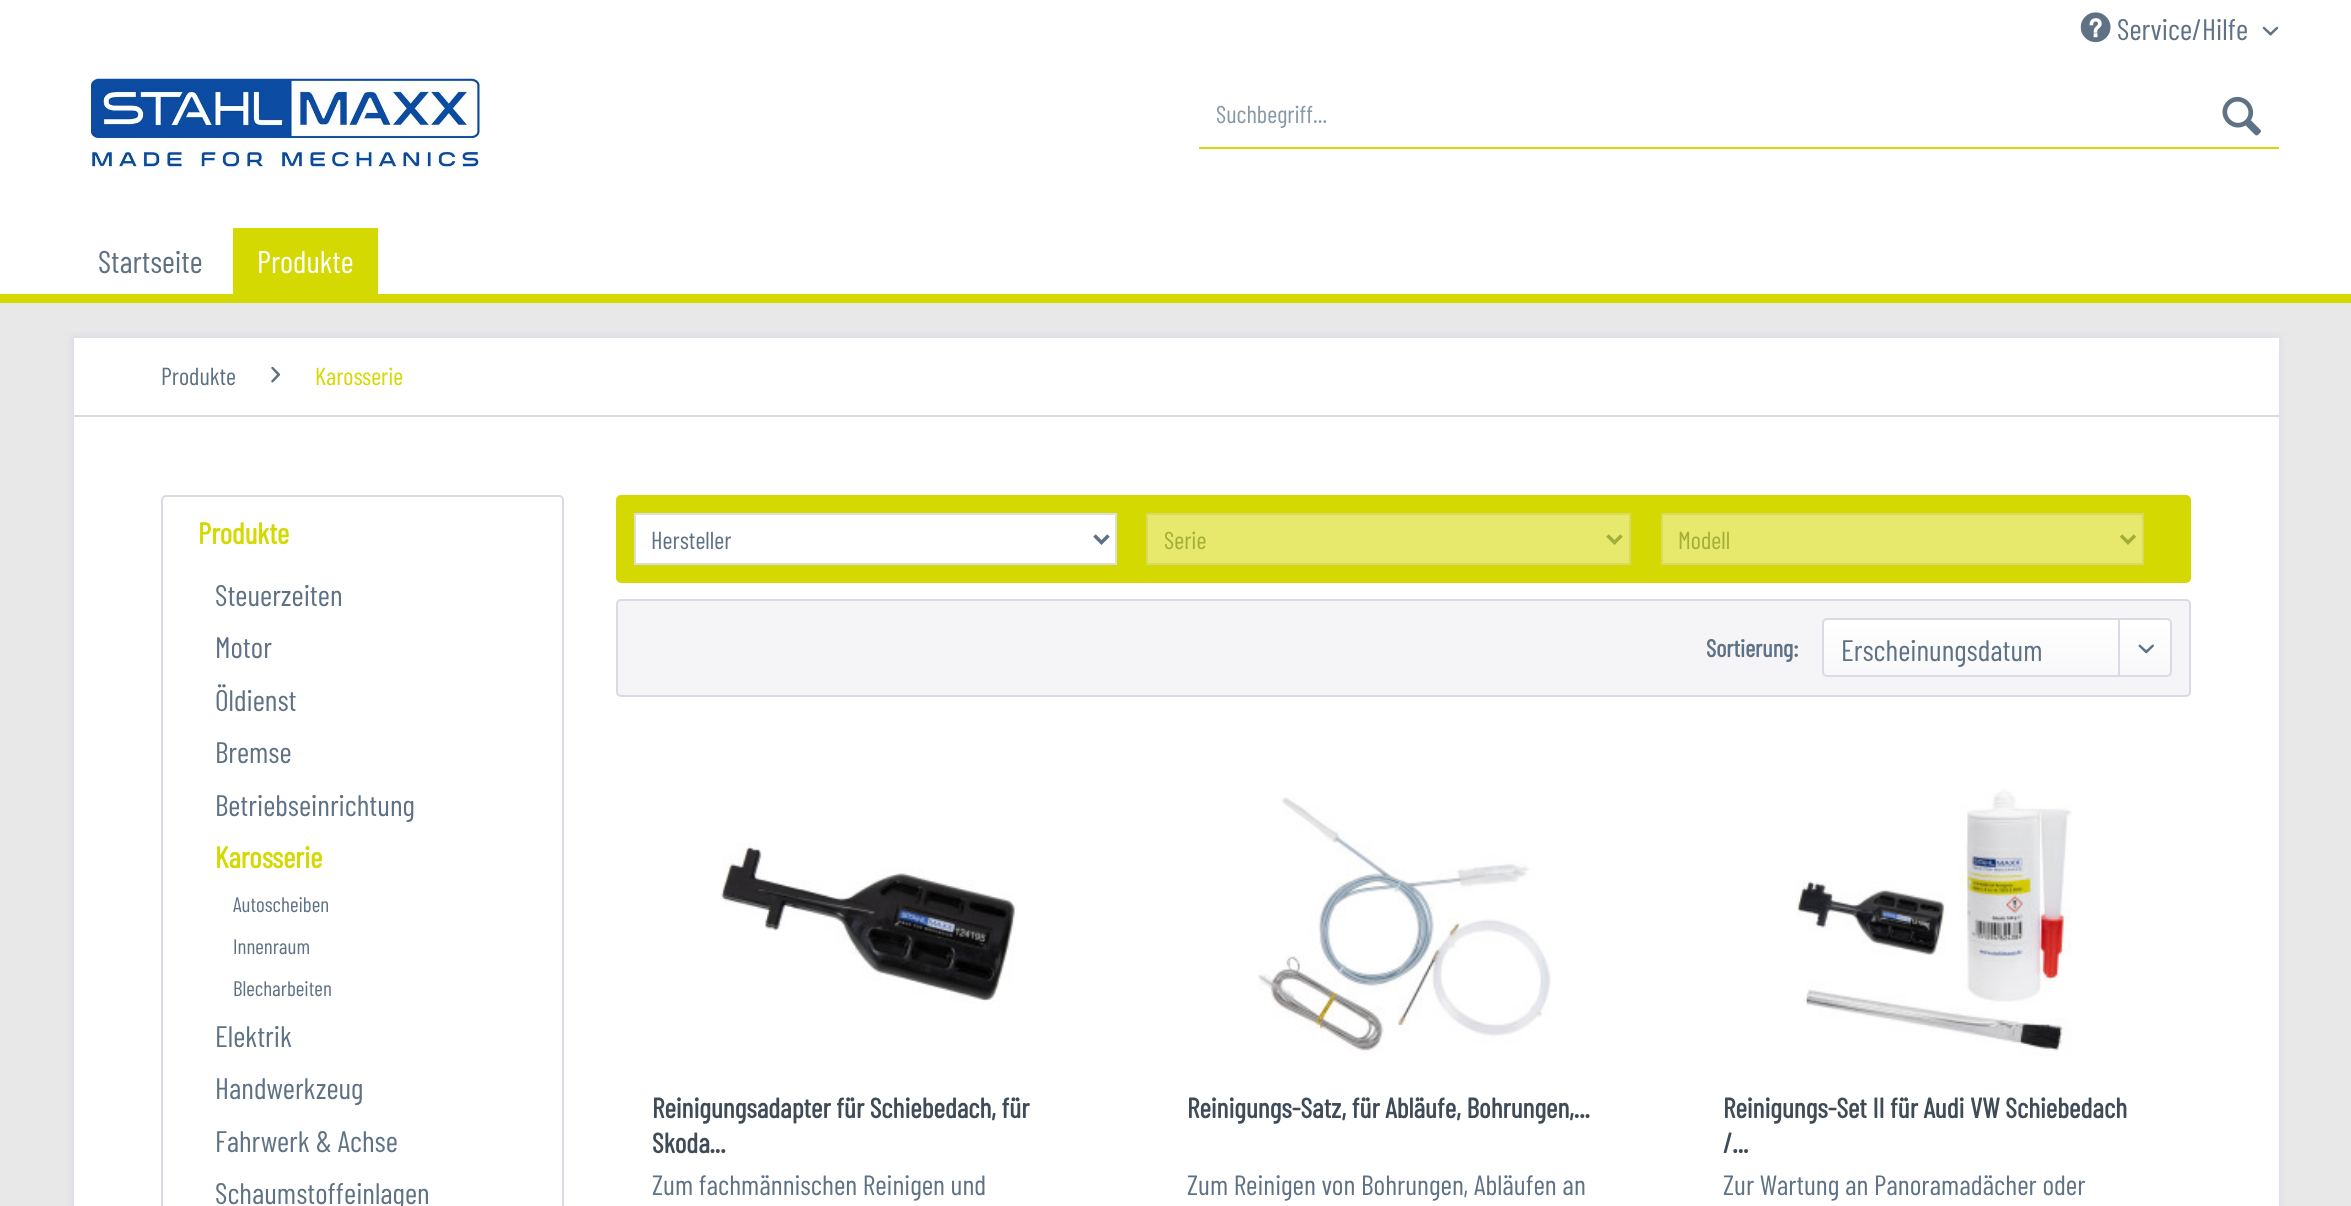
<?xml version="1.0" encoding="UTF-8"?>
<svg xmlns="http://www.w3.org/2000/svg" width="2351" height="1206">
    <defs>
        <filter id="blur1" x="-50%" y="-200%" width="200%" height="500%"><feGaussianBlur stdDeviation="3.5"/></filter>
        <linearGradient id="g1" gradientUnits="userSpaceOnUse" x1="1997" y1="620" x2="1997" y2="676"><stop offset="0" stop-color="#FFFFFF"/><stop offset="1" stop-color="#F8F8FA"/></linearGradient>
    </defs>
    <rect width="100%" height="100%" fill="#E8E8E8"/>
    <rect x="0" y="0" width="2351" height="294" fill="#FFFFFF"/>
    <image x="2080" y="12" width="31" height="31" href="img_01.png"/>
    <text x="2117" y="40" font-family="Barlow Condensed" font-size="29.75" fill="#5F7285">Service/Hilfe</text>
    <image x="2262" y="26" width="17" height="10" href="img_02.png"/>
    <image x="91" y="78" width="389" height="89" href="img_03.png"/>
    <rect x="1199" y="147" width="1080" height="2" fill="#D4D901"/>
    <text x="1216" y="123" font-family="Barlow Condensed" font-size="24.5" fill="#8798A9">Suchbegriff...</text>
    <image x="2222" y="96" width="39" height="40" href="img_04.png"/>
    <rect x="0" y="294" width="2351" height="9" fill="#D4D901"/>
    <text x="98" y="273" font-family="Barlow Condensed" font-size="31.5" fill="#5F7285">Startseite</text>
    <rect x="233" y="228" width="145" height="66" fill="#D4D901"/>
    <text x="257" y="273" font-family="Barlow Condensed" font-size="31.5" fill="#FFFFFF">Produkte</text>
    <rect x="72" y="336" width="2208" height="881" fill="#DADAE5" filter="url(#blur1)"/>
    <rect x="74" y="338" width="2205" height="868" fill="#FFFFFF"/>
    <rect x="74" y="415" width="2205" height="2" fill="#DADAE5"/>
    <text x="161" y="385" font-family="Barlow Condensed" font-size="24.5" fill="#5F7285">Produkte</text>
    <image x="271" y="366" width="10" height="17" href="img_05.png"/>
    <text x="315" y="385" font-family="Barlow Condensed" font-size="24.5" fill="#D4D901">Karosserie</text>
    <rect x="162" y="496" width="401" height="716" rx="4" fill="none" stroke="#DADAE5" stroke-width="2"/>
    <text x="198" y="544" font-family="Barlow Condensed" font-size="29.75" font-weight="700" fill="#D4D901">Produkte</text>
    <text font-family="Barlow Condensed" font-size="29.75" fill="#5F7285">
        <tspan x="215" y="606">Steuerzeiten</tspan>
        <tspan x="215" y="658">Motor</tspan>
        <tspan x="215" y="711">Öldienst</tspan>
        <tspan x="215" y="763">Bremse</tspan>
        <tspan x="215" y="816">Betriebseinrichtung</tspan>
    </text>
    <text x="215" y="868" font-family="Barlow Condensed" font-size="29.75" font-weight="700" fill="#D4D901">Karosserie</text>
    <text x="233" y="912" font-family="Barlow Condensed" font-size="21" fill="#5F7285">Autoscheiben</text>
    <text x="233" y="954" font-family="Barlow Condensed" font-size="21" fill="#5F7285">Innenraum</text>
    <text x="233" y="996" font-family="Barlow Condensed" font-size="21" fill="#5F7285">Blecharbeiten</text>
    <text font-family="Barlow Condensed" font-size="29.75" fill="#5F7285">
        <tspan x="215" y="1047">Elektrik</tspan>
        <tspan x="215" y="1099">Handwerkzeug</tspan>
        <tspan x="215" y="1152">Fahrwerk &amp; Achse</tspan>
        <tspan x="215" y="1204">Schaumstoffeinlagen</tspan>
    </text>
    <rect x="616" y="495" width="1575" height="88" rx="5" fill="#D4D901"/>
    <rect x="635" y="514" width="481" height="50" fill="#FFFFFF" stroke="#DDDDDD" stroke-width="2"/>
    <path d="M 1094.5 535.5 L 1101.5 542.5 L 1108.5 535.5" fill="none" stroke="#5F7285" stroke-width="3.5"/>
    <text x="651" y="549" font-family="Barlow Condensed" font-size="24.5" fill="#5F7285">Hersteller</text>
    <rect x="1147" y="514" width="483" height="50" fill="#E6E96C" stroke="#D8DB5D" stroke-width="2"/>
    <path d="M 1607.5 535.5 L 1614.5 542.5 L 1621.5 535.5" fill="none" stroke="#A3AE38" stroke-width="3.5"/>
    <text x="1164" y="549" font-family="Barlow Condensed" font-size="24.5" fill="#A3AE38">Serie</text>
    <rect x="1662" y="514" width="481" height="50" fill="#E6E96C" stroke="#D8DB5D" stroke-width="2"/>
    <path d="M 2121 535.5 L 2128 542.5 L 2135 535.5" fill="none" stroke="#A3AE38" stroke-width="3.5"/>
    <text x="1678" y="549" font-family="Barlow Condensed" font-size="24.5" fill="#A3AE38">Modell</text>
    <rect x="617" y="600" width="1573" height="96" rx="4" fill="#F5F5F8" stroke="#DADAE5" stroke-width="2"/>
    <text x="1706" y="657" font-family="Barlow Condensed" font-size="24.5" font-weight="700" fill="#5F7285">Sortierung:</text>
    <rect x="1824" y="620" width="346" height="56" rx="4" fill="url(#g1)"/>
    <rect x="1823" y="619" width="348" height="57" rx="4" fill="none" stroke="#DADAE5" stroke-width="2"/>
    <text x="1841" y="661" font-family="Barlow Condensed" font-size="29.75" fill="#5F7285">Erscheinungsdatum</text>
    <rect x="2118" y="620" width="2" height="57" fill="#DADAE5"/>
    <image x="2138" y="644" width="16" height="10" href="img_06.png"/>
    <image x="720" y="843" width="299" height="161" href="img_07.png"/>
    <text font-family="Barlow Condensed" font-size="28" font-weight="700" fill="#3F4C58">
        <tspan x="652" y="1118">Reinigungsadapter für Schiebedach, für</tspan>
        <tspan x="652" y="1153">Skoda...</tspan>
    </text>
    <text x="652" y="1195" font-family="Barlow Condensed" font-size="28" fill="#5F7285">Zum fachmännischen Reinigen und</text>
    <image x="1258" y="797" width="293" height="256" href="img_08.png"/>
    <text x="1187" y="1118" font-family="Barlow Condensed" font-size="28" font-weight="700" fill="#3F4C58">Reinigungs-Satz, für Abläufe, Bohrungen,...</text>
    <text x="1187" y="1195" font-family="Barlow Condensed" font-size="28" fill="#5F7285">Zum Reinigen von Bohrungen, Abläufen an</text>
    <image x="1795" y="789" width="277" height="267" href="img_09.png"/>
    <text font-family="Barlow Condensed" font-size="28" font-weight="700" fill="#3F4C58">
        <tspan x="1723" y="1118">Reinigungs-Set II für Audi VW Schiebedach</tspan>
        <tspan x="1723" y="1153">/...</tspan>
    </text>
    <text x="1723" y="1195" font-family="Barlow Condensed" font-size="28" fill="#5F7285">Zur Wartung an Panoramadächer oder</text>
</svg>
